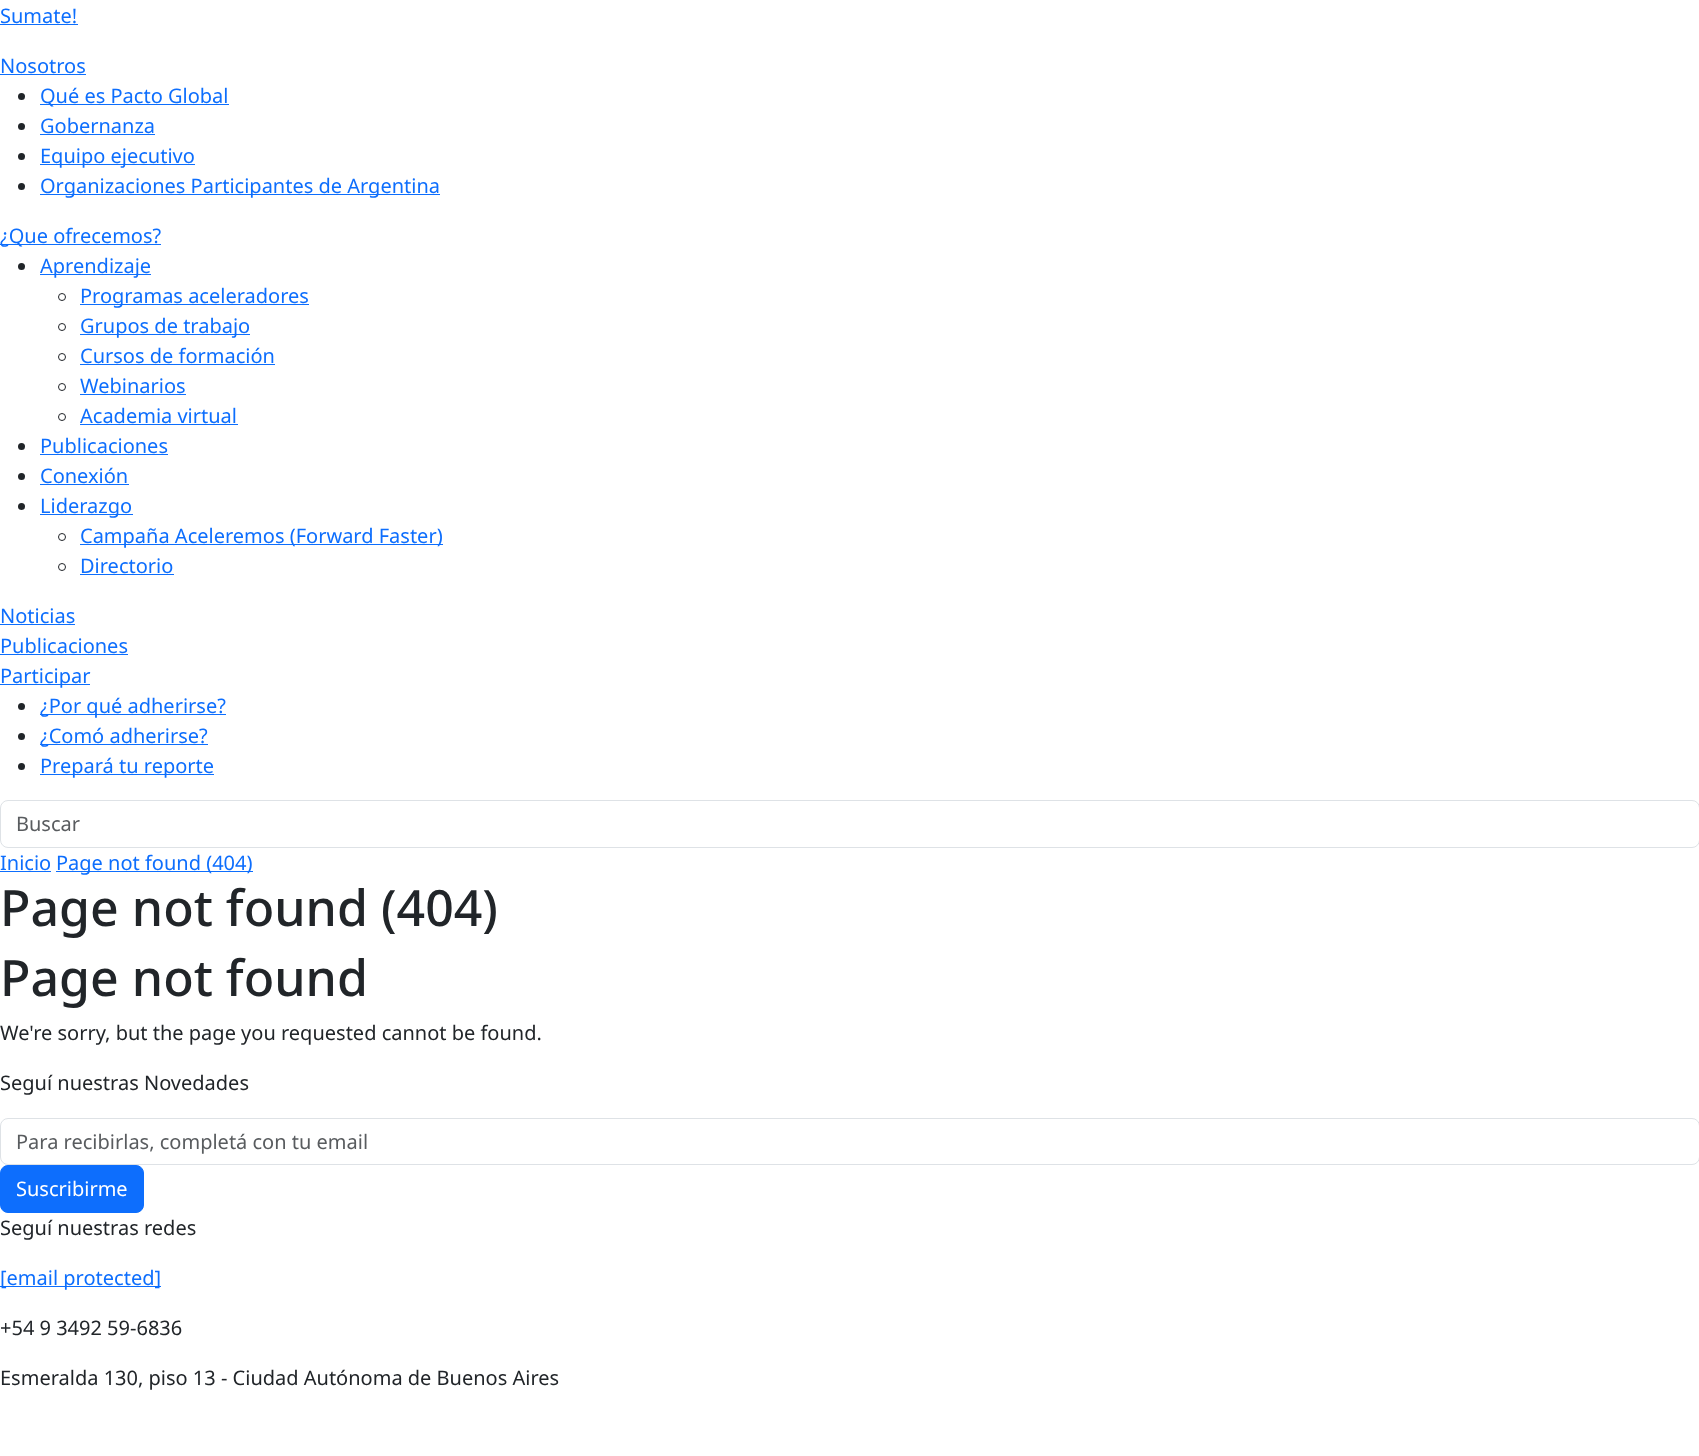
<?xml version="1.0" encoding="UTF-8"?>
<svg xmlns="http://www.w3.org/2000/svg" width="1699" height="1456">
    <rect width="100%" height="100%" fill="#FFFFFF"/>
    <text x="0" y="23" font-family="Noto Sans" font-size="20" fill="#0D6EFD">Sumate!</text>
    <rect x="0" y="24" width="78" height="1" fill="#0D6EFD"/>
    <text x="0" y="73" font-family="Noto Sans" font-size="20" fill="#0D6EFD">Nosotros</text>
    <rect x="0" y="74" width="86" height="1" fill="#0D6EFD"/>
    <circle cx="21.5" cy="96.5" r="3.5" fill="#212529"/>
    <rect x="40" y="104" width="189" height="1" fill="#0D6EFD"/>
    <text x="40" y="103" font-family="Noto Sans" font-size="20" fill="#0D6EFD">Qué es Pacto Global</text>
    <circle cx="21.5" cy="126.5" r="3.5" fill="#212529"/>
    <text x="40" y="133" font-family="Noto Sans" font-size="20" fill="#0D6EFD">Gobernanza</text>
    <rect x="40" y="134" width="115" height="1" fill="#0D6EFD"/>
    <circle cx="21.5" cy="156.5" r="3.5" fill="#212529"/>
    <rect x="40" y="164" width="155" height="1" fill="#0D6EFD"/>
    <text x="40" y="163" font-family="Noto Sans" font-size="20" fill="#0D6EFD">Equipo ejecutivo</text>
    <circle cx="21.5" cy="186.5" r="3.5" fill="#212529"/>
    <rect x="40" y="194" width="400" height="1" fill="#0D6EFD"/>
    <text x="40" y="193" font-family="Noto Sans" font-size="20" fill="#0D6EFD">Organizaciones Participantes de Argentina</text>
    <rect x="0" y="244" width="161" height="1" fill="#0D6EFD"/>
    <text x="0" y="243" font-family="Noto Sans" font-size="20" fill="#0D6EFD">¿Que ofrecemos?</text>
    <circle cx="21.5" cy="266.5" r="3.5" fill="#212529"/>
    <rect x="40" y="274" width="111" height="1" fill="#0D6EFD"/>
    <text x="40" y="273" font-family="Noto Sans" font-size="20" fill="#0D6EFD">Aprendizaje</text>
    <circle cx="62" cy="297" r="3.5" fill="none" stroke="#212529"/>
    <rect x="80" y="304" width="229" height="1" fill="#0D6EFD"/>
    <text x="80" y="303" font-family="Noto Sans" font-size="20" fill="#0D6EFD">Programas aceleradores</text>
    <circle cx="62" cy="327" r="3.5" fill="none" stroke="#212529"/>
    <rect x="80" y="334" width="170" height="1" fill="#0D6EFD"/>
    <text x="80" y="333" font-family="Noto Sans" font-size="20" fill="#0D6EFD">Grupos de trabajo</text>
    <circle cx="62" cy="357" r="3.5" fill="none" stroke="#212529"/>
    <text x="80" y="363" font-family="Noto Sans" font-size="20" fill="#0D6EFD">Cursos de formación</text>
    <rect x="80" y="364" width="195" height="1" fill="#0D6EFD"/>
    <circle cx="62" cy="387" r="3.5" fill="none" stroke="#212529"/>
    <text x="80" y="393" font-family="Noto Sans" font-size="20" fill="#0D6EFD">Webinarios</text>
    <rect x="80" y="394" width="106" height="1" fill="#0D6EFD"/>
    <circle cx="62" cy="417" r="3.5" fill="none" stroke="#212529"/>
    <text x="80" y="423" font-family="Noto Sans" font-size="20" fill="#0D6EFD">Academia virtual</text>
    <rect x="80" y="424" width="158" height="1" fill="#0D6EFD"/>
    <circle cx="21.5" cy="446.5" r="3.5" fill="#212529"/>
    <text x="40" y="453" font-family="Noto Sans" font-size="20" fill="#0D6EFD">Publicaciones</text>
    <rect x="40" y="454" width="128" height="1" fill="#0D6EFD"/>
    <circle cx="21.5" cy="476.5" r="3.5" fill="#212529"/>
    <text x="40" y="483" font-family="Noto Sans" font-size="20" fill="#0D6EFD">Conexión</text>
    <rect x="40" y="484" width="89" height="1" fill="#0D6EFD"/>
    <circle cx="21.5" cy="506.5" r="3.5" fill="#212529"/>
    <rect x="40" y="514" width="93" height="1" fill="#0D6EFD"/>
    <text x="40" y="513" font-family="Noto Sans" font-size="20" fill="#0D6EFD">Liderazgo</text>
    <circle cx="62" cy="537" r="3.5" fill="none" stroke="#212529"/>
    <rect x="80" y="544" width="363" height="1" fill="#0D6EFD"/>
    <text x="80" y="543" font-family="Noto Sans" font-size="20" fill="#0D6EFD">Campaña Aceleremos (Forward Faster)</text>
    <circle cx="62" cy="567" r="3.5" fill="none" stroke="#212529"/>
    <text x="80" y="573" font-family="Noto Sans" font-size="20" fill="#0D6EFD">Directorio</text>
    <rect x="80" y="574" width="94" height="1" fill="#0D6EFD"/>
    <text x="0" y="623" font-family="Noto Sans" font-size="20" fill="#0D6EFD">Noticias</text>
    <rect x="0" y="624" width="75" height="1" fill="#0D6EFD"/>
    <text x="0" y="653" font-family="Noto Sans" font-size="20" fill="#0D6EFD">Publicaciones</text>
    <rect x="0" y="654" width="128" height="1" fill="#0D6EFD"/>
    <rect x="0" y="684" width="90" height="1" fill="#0D6EFD"/>
    <text x="0" y="683" font-family="Noto Sans" font-size="20" fill="#0D6EFD">Participar</text>
    <circle cx="21.5" cy="706.5" r="3.5" fill="#212529"/>
    <rect x="40" y="714" width="186" height="1" fill="#0D6EFD"/>
    <text x="40" y="713" font-family="Noto Sans" font-size="20" fill="#0D6EFD">¿Por qué adherirse?</text>
    <circle cx="21.5" cy="736.5" r="3.5" fill="#212529"/>
    <rect x="40" y="744" width="168" height="1" fill="#0D6EFD"/>
    <text x="40" y="743" font-family="Noto Sans" font-size="20" fill="#0D6EFD">¿Comó adherirse?</text>
    <circle cx="21.5" cy="766.5" r="3.5" fill="#212529"/>
    <rect x="40" y="774" width="174" height="1" fill="#0D6EFD"/>
    <text x="40" y="773" font-family="Noto Sans" font-size="20" fill="#0D6EFD">Prepará tu reporte</text>
    <rect x="0.5" y="800.5" width="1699" height="47" rx="7.5" fill="none" stroke="#DEE2E6"/>
    <text x="16" y="831" font-family="Noto Sans" font-size="20" fill="#595C5F">Buscar</text>
    <text x="0" y="870" font-family="Noto Sans" font-size="20" fill="#0D6EFD">Inicio</text>
    <rect x="0" y="871" width="51" height="1" fill="#0D6EFD"/>
    <rect x="56" y="871" width="197" height="1" fill="#0D6EFD"/>
    <text x="56" y="870" font-family="Noto Sans" font-size="20" fill="#0D6EFD">Page not found (404)</text>
    <text font-family="Noto Sans" font-size="50" font-weight="500" fill="#212529">
        <tspan x="0" y="926">Page not found (404)</tspan>
        <tspan x="0" y="996">Page not found</tspan>
    </text>
    <text x="0" y="1040" font-family="Noto Sans" font-size="20" fill="#212529">We're sorry, but the page you requested cannot be found.</text>
    <text x="0" y="1090" font-family="Noto Sans" font-size="20" fill="#212529">Seguí nuestras Novedades</text>
    <rect x="0.5" y="1118.5" width="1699" height="46" rx="7.5" fill="none" stroke="#DEE2E6"/>
    <text x="16" y="1149" font-family="Noto Sans" font-size="20" fill="#595C5F">Para recibirlas, completá con tu email</text>
    <rect x="0.5" y="1165.5" width="143" height="47" rx="7.5" fill="#0D6EFD" stroke="#0D6EFD"/>
    <text x="16" y="1196" font-family="Noto Sans" font-size="20" fill="#FFFFFF">Suscribirme</text>
    <text x="0" y="1235" font-family="Noto Sans" font-size="20" fill="#212529">Seguí nuestras redes</text>
    <rect x="0" y="1286" width="161" height="1" fill="#0D6EFD"/>
    <text x="0" y="1285" font-family="Noto Sans" font-size="20" fill="#0D6EFD">[email protected]</text>
    <text x="0" y="1335" font-family="Noto Sans" font-size="20" fill="#212529">+54 9 3492 59-6836</text>
    <text x="0" y="1385" font-family="Noto Sans" font-size="20" fill="#212529">Esmeralda 130, piso 13 - Ciudad Autónoma de Buenos Aires</text>
</svg>
